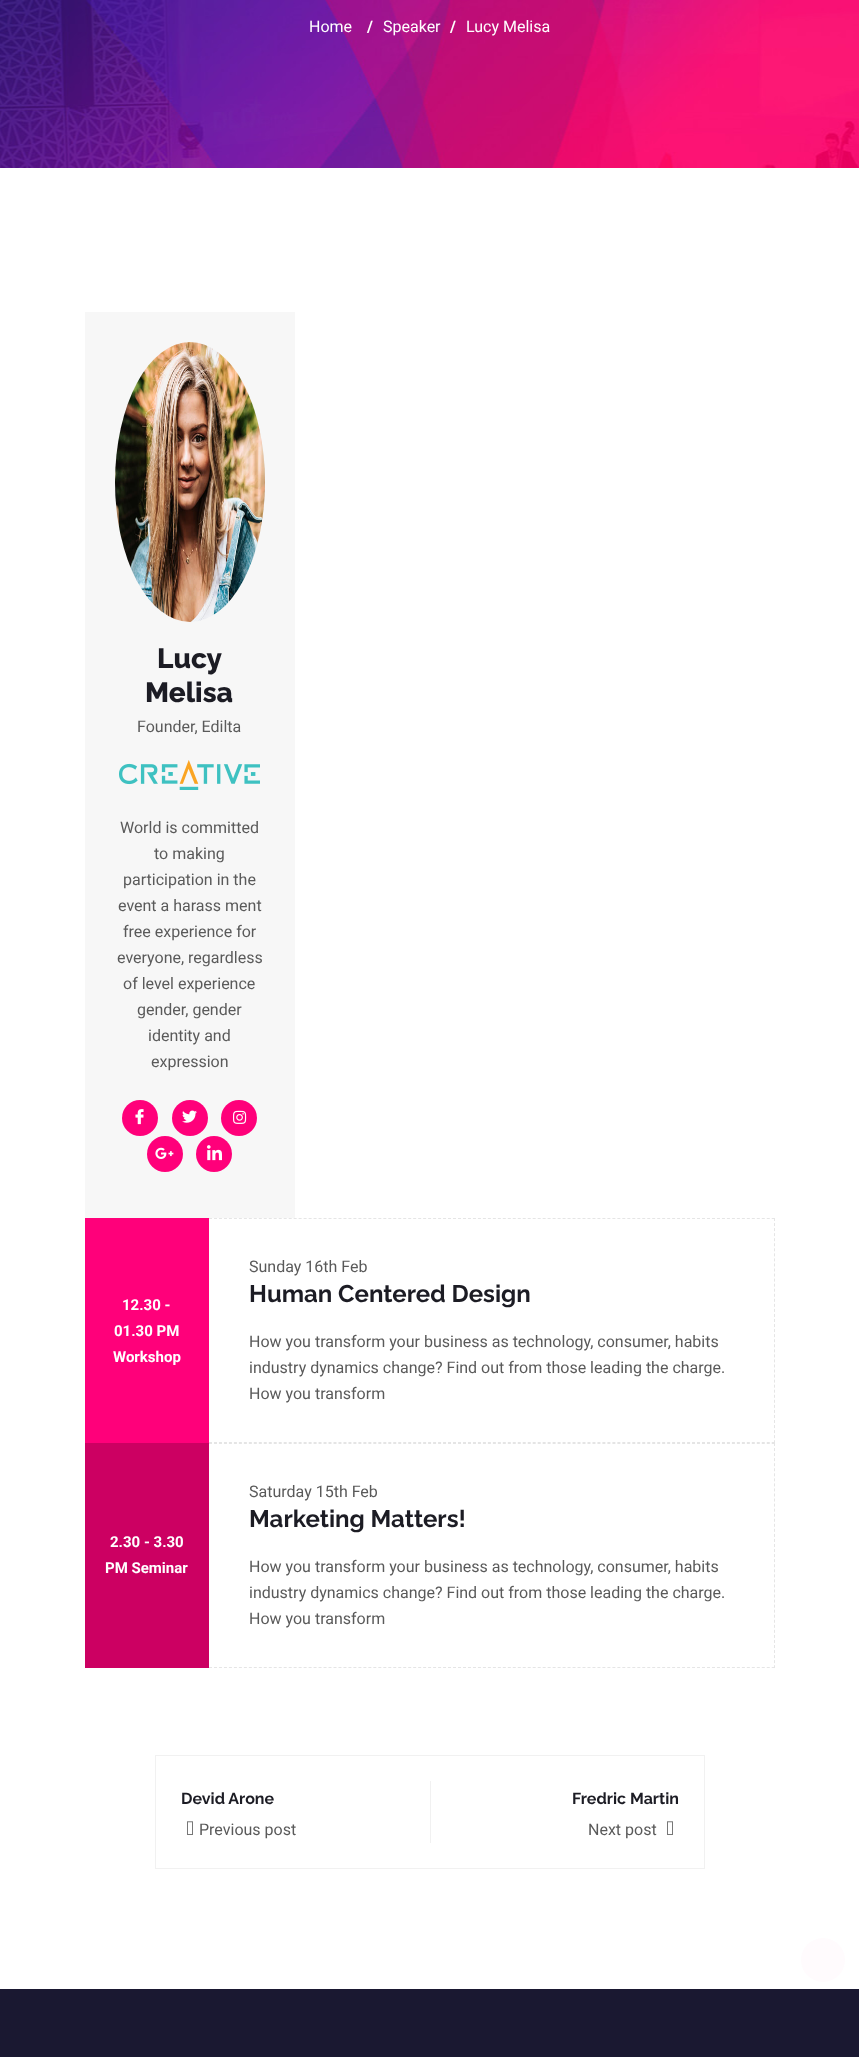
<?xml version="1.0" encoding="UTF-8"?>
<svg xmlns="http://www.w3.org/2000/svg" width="859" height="2057">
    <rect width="100%" height="100%" fill="#FFFFFF"/>
    <image x="0" y="0" width="859" height="168" href="img_01.png"/>
    <text x="309" y="32" font-family="Roboto" font-size="16" fill="#FFFFFF">Home</text>
    <text x="367" y="32" font-family="Roboto" font-size="16" font-weight="700" fill="#FFFFFF">/</text>
    <text x="383" y="32" font-family="Roboto" font-size="16" fill="#FFFFFF">Speaker</text>
    <text x="450" y="32" font-family="Roboto" font-size="16" font-weight="700" fill="#FFFFFF">/</text>
    <text x="466" y="32" font-family="Roboto" font-size="16" fill="#FFFFFF">Lucy Melisa</text>
    <rect x="85" y="312" width="210" height="906" fill="#F7F7F7"/>
    <image x="115" y="342" width="150" height="280" href="img_02.png"/>
    <text x="157" y="668" font-family="Raleway" font-size="28" font-weight="800" fill="#1C1C24">Lucy</text>
    <text x="145" y="702" font-family="Raleway" font-size="28" font-weight="800" fill="#1C1C24">Melisa</text>
    <text x="137" y="732" font-family="Roboto" font-size="16" fill="#5A5A5A">Founder, Edilta</text>
    <image x="119" y="760" width="141" height="30" href="img_03.png"/>
    <text x="120" y="833" font-family="Roboto" font-size="16" fill="#5A5A5A">World is committed</text>
    <text x="154" y="859" font-family="Roboto" font-size="16" fill="#5A5A5A">to making</text>
    <text x="123" y="885" font-family="Roboto" font-size="16" fill="#5A5A5A">participation in the</text>
    <text x="118" y="911" font-family="Roboto" font-size="16" fill="#5A5A5A">event a harass ment</text>
    <text x="123" y="937" font-family="Roboto" font-size="16" fill="#5A5A5A">free experience for</text>
    <text x="117" y="963" font-family="Roboto" font-size="16" fill="#5A5A5A">everyone, regardless</text>
    <text x="123" y="989" font-family="Roboto" font-size="16" fill="#5A5A5A">of level experience</text>
    <text x="137" y="1015" font-family="Roboto" font-size="16" fill="#5A5A5A">gender, gender</text>
    <text x="148" y="1041" font-family="Roboto" font-size="16" fill="#5A5A5A">identity and</text>
    <text x="151" y="1067" font-family="Roboto" font-size="16" fill="#5A5A5A">expression</text>
    <circle cx="140" cy="1118" r="18" fill="#FF007A"/>
    <image x="135" y="1109" width="9" height="16" href="img_04.png"/>
    <circle cx="190" cy="1118" r="18" fill="#FF007A"/>
    <image x="182" y="1110" width="15" height="13" href="img_05.png"/>
    <circle cx="239" cy="1118" r="18" fill="#FF007A"/>
    <image x="233" y="1110" width="14" height="14" href="img_06.png"/>
    <circle cx="165" cy="1154" r="18" fill="#FF007A"/>
    <image x="155" y="1147" width="19" height="12" href="img_07.png"/>
    <circle cx="214" cy="1154" r="18" fill="#FF007A"/>
    <image x="207" y="1145" width="15" height="16" href="img_08.png"/>
    <rect x="85" y="1218" width="124" height="225" fill="#FF007A"/>
    <text x="122" y="1310" font-family="Roboto" font-size="15" font-weight="700" fill="#FFFFFF">12.30 -</text>
    <text x="114" y="1336" font-family="Roboto" font-size="15" font-weight="700" fill="#FFFFFF">01.30 PM</text>
    <text x="113" y="1362" font-family="Roboto" font-size="15" font-weight="700" fill="#FFFFFF">Workshop</text>
    <path d="M 209 1218.5 H 775" fill="none" stroke="#E5E5E5" stroke-dasharray="3 1.98"/>
    <path d="M 774.5 1218 V 1443" fill="none" stroke="#E5E5E5" stroke-dasharray="3 2.05"/>
    <path d="M 209 1442.5 H 775" fill="none" stroke="#E5E5E5" stroke-dasharray="3 1.98"/>
    <text x="249" y="1272" font-family="Roboto" font-size="16" fill="#5A5A5A">Sunday 16th Feb</text>
    <text x="249" y="1302" font-family="Raleway" font-size="24" font-weight="700" fill="#1C1C24">Human Centered Design</text>
    <text font-family="Roboto" font-size="16" fill="#5A5A5A">
        <tspan x="249" y="1347">How you transform your business as technology, consumer, habits</tspan>
        <tspan x="249" y="1373">industry dynamics change? Find out from those leading the charge.</tspan>
        <tspan x="249" y="1399">How you transform</tspan>
    </text>
    <rect x="85" y="1443" width="124" height="225" fill="#CC0062"/>
    <text x="110" y="1547" font-family="Roboto" font-size="15" font-weight="700" fill="#FFFFFF">2.30 - 3.30</text>
    <text x="105" y="1573" font-family="Roboto" font-size="15" font-weight="700" fill="#FFFFFF">PM Seminar</text>
    <path d="M 209 1443.5 H 775" fill="none" stroke="#E5E5E5" stroke-dasharray="3 1.98"/>
    <path d="M 774.5 1443 V 1668" fill="none" stroke="#E5E5E5" stroke-dasharray="3 2.05"/>
    <path d="M 209 1667.5 H 775" fill="none" stroke="#E5E5E5" stroke-dasharray="3 1.98"/>
    <text x="249" y="1497" font-family="Roboto" font-size="16" fill="#5A5A5A">Saturday 15th Feb</text>
    <text x="249" y="1527" font-family="Raleway" font-size="24" font-weight="700" fill="#1C1C24">Marketing Matters!</text>
    <text font-family="Roboto" font-size="16" fill="#5A5A5A">
        <tspan x="249" y="1572">How you transform your business as technology, consumer, habits</tspan>
        <tspan x="249" y="1598">industry dynamics change? Find out from those leading the charge.</tspan>
        <tspan x="249" y="1624">How you transform</tspan>
    </text>
    <rect x="155.5" y="1755.5" width="549" height="113" fill="none" stroke="#F1F1F1"/>
    <text x="181" y="1804" font-family="Raleway" font-size="16" font-weight="700" fill="#1C1C24">Devid Arone</text>
    <image x="187" y="1821" width="6" height="14" href="img_09.png"/>
    <text x="199" y="1835" font-family="Roboto" font-size="16" fill="#5A5A5A">Previous post</text>
    <rect x="430" y="1781" width="1" height="62" fill="#F1F1F1"/>
    <text x="572" y="1804" font-family="Raleway" font-size="16" font-weight="700" fill="#1C1C24">Fredric Martin</text>
    <text x="588" y="1835" font-family="Roboto" font-size="16" fill="#5A5A5A">Next post</text>
    <image x="667" y="1821" width="6" height="14" href="img_09.png"/>
    <rect x="0" y="1989" width="859" height="68" fill="#1A1831"/>
    <circle cx="823" cy="1960" r="22" fill="#FFFBFD"/>
</svg>
